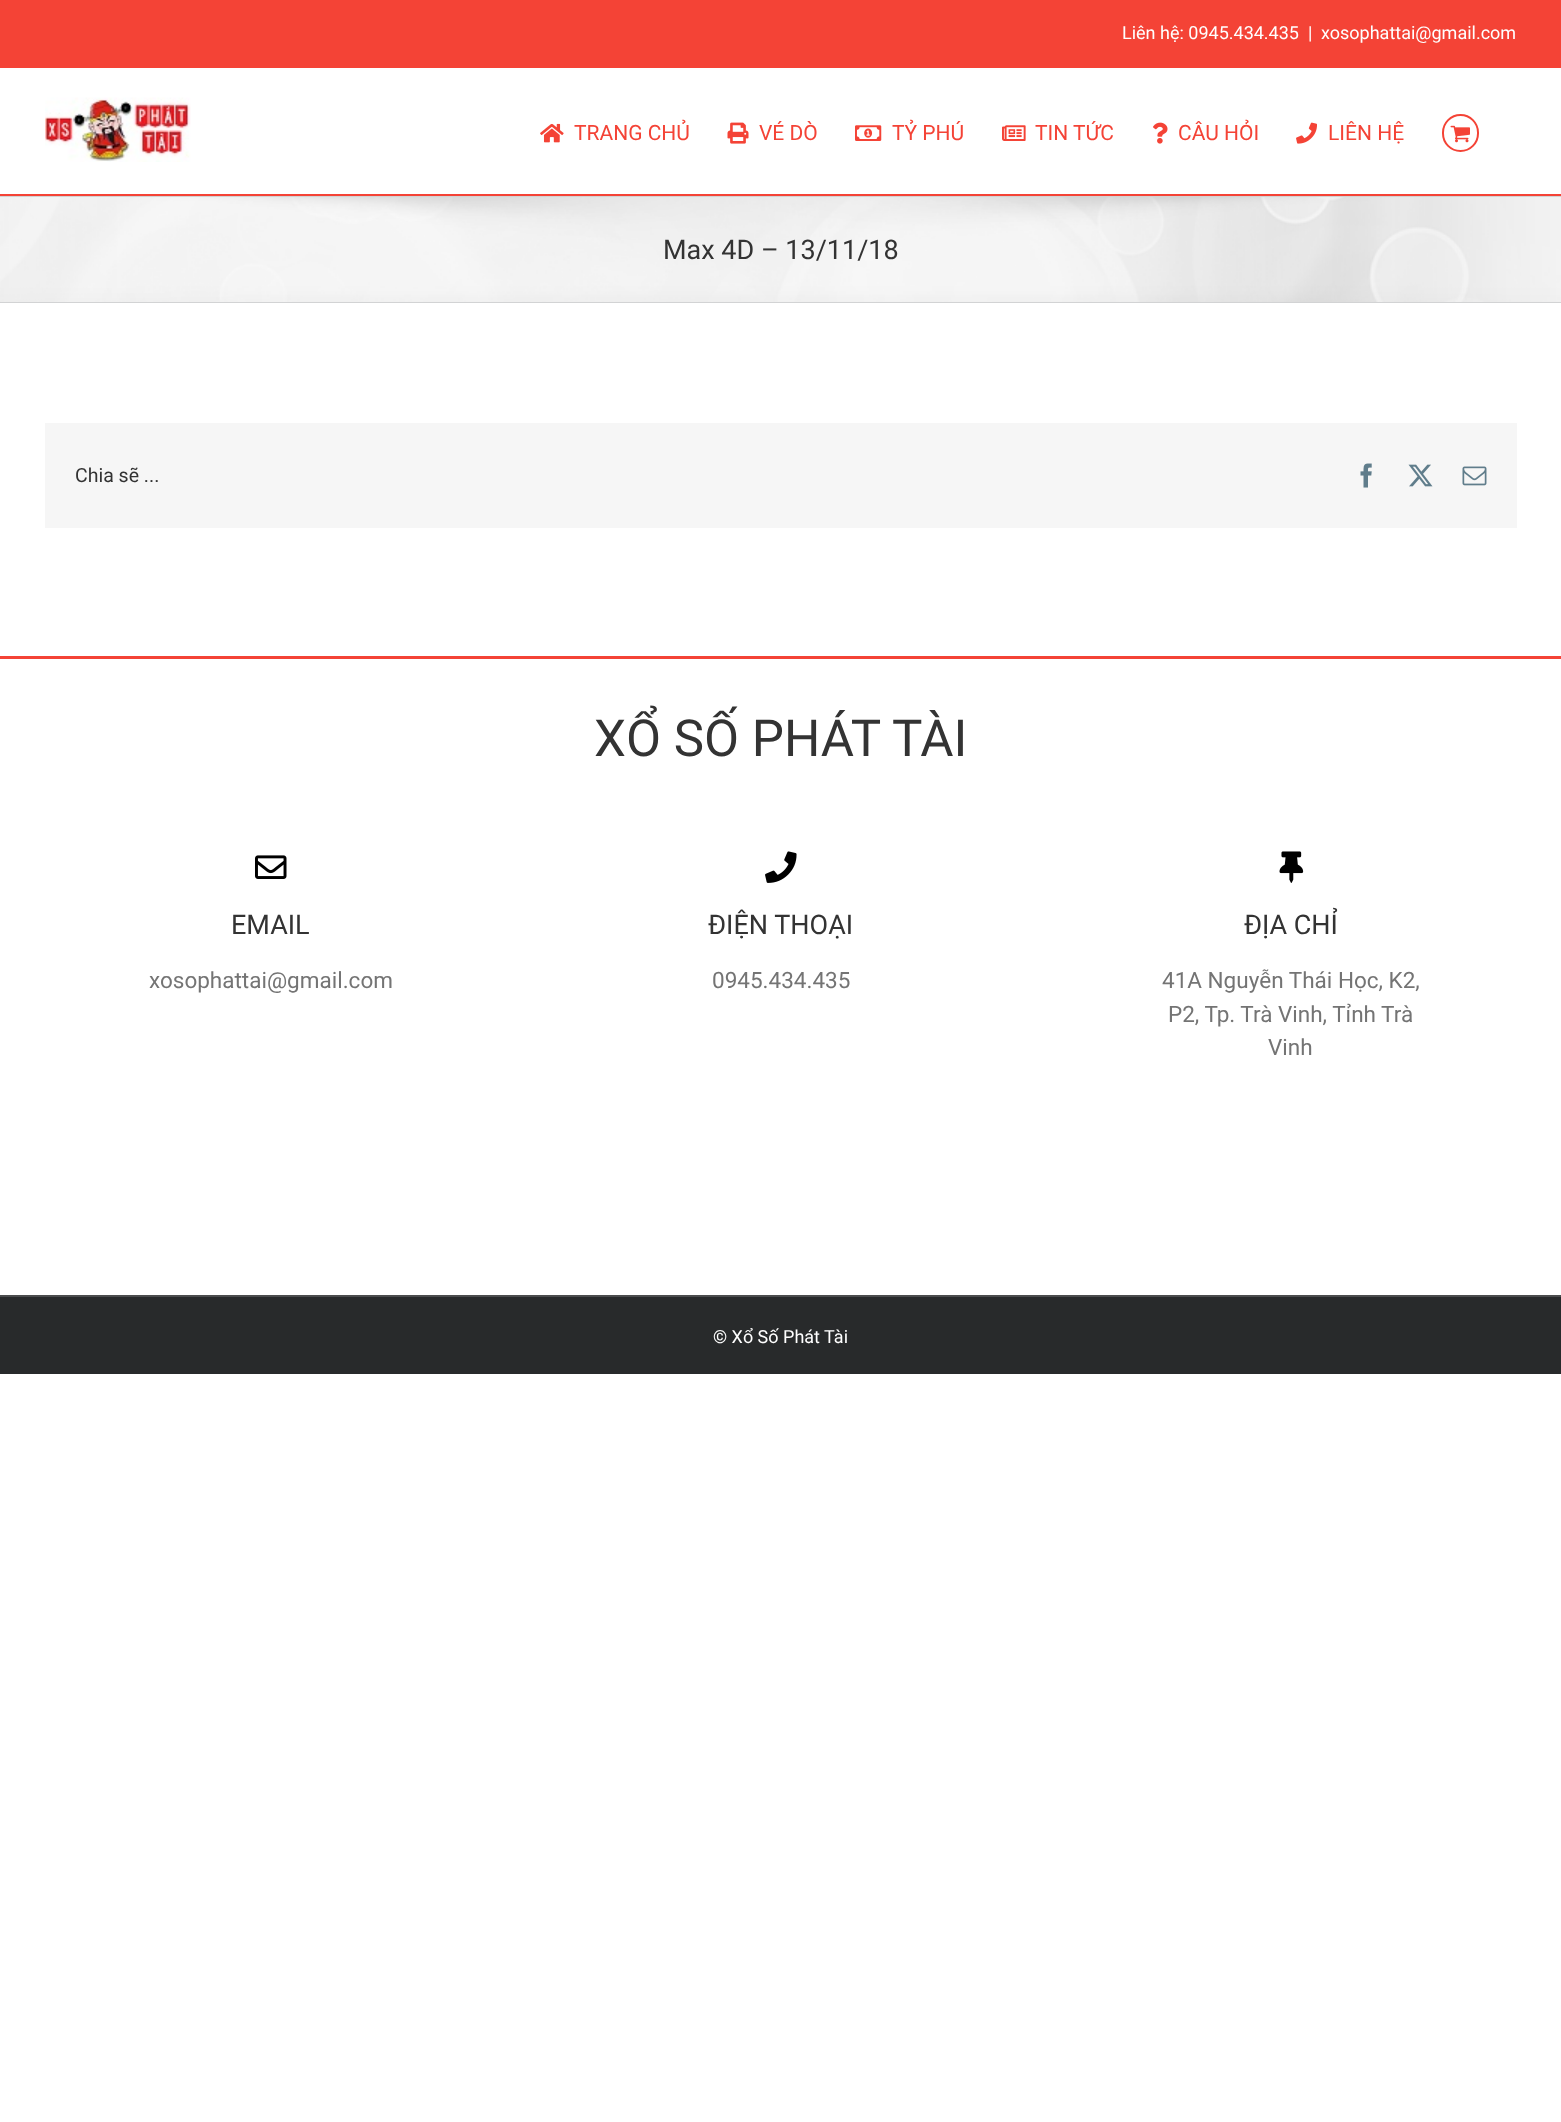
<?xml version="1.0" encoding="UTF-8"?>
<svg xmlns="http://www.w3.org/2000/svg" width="1561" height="2122">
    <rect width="100%" height="100%" fill="#FFFFFF"/>
    <rect x="0" y="0" width="1561" height="68" fill="#F44336"/>
    <text x="1122" y="39" font-family="Roboto" font-size="18" fill="#FFFFFF">Liên hệ: 0945.434.435</text>
    <text x="1308" y="39" font-family="Roboto" font-size="18" fill="#FFFFFF">|</text>
    <text x="1321" y="39" font-family="Roboto" font-size="18" fill="#FFFFFF">xosophattai@gmail.com</text>
    <rect x="0" y="194" width="1561" height="2" fill="#F44336"/>
    <image x="45" y="97" width="146" height="65" href="img_01.png"/>
    <image x="540" y="123" width="24" height="20" href="img_02.png"/>
    <text x="574" y="140" font-family="Roboto" font-size="21" fill="#F44336">TRANG CHỦ</text>
    <image x="727" y="122" width="22" height="22" href="img_03.png"/>
    <text x="759" y="140" font-family="Roboto" font-size="21" fill="#F44336">VÉ DÒ</text>
    <image x="855" y="125" width="27" height="16" href="img_04.png"/>
    <text x="892" y="140" font-family="Roboto" font-size="21" fill="#F44336">TỶ PHÚ</text>
    <image x="1002" y="125" width="24" height="16" href="img_05.png"/>
    <text x="1035" y="140" font-family="Roboto" font-size="21" fill="#F44336">TIN TỨC</text>
    <image x="1153" y="122" width="15" height="22" href="img_06.png"/>
    <text x="1178" y="140" font-family="Roboto" font-size="21" fill="#F44336">CÂU HỎI</text>
    <image x="1296" y="122" width="21" height="22" href="img_07.png"/>
    <text x="1328" y="140" font-family="Roboto" font-size="21" fill="#F44336">LIÊN HỆ</text>
    <rect x="1443" y="115" width="35" height="36" rx="17.5" fill="none" stroke="#F44336" stroke-width="2"/>
    <image x="1450" y="125" width="20" height="18" href="img_08.png"/>
    <rect x="0" y="197" width="1561" height="105" fill="#F6F6F6"/>
    <image x="0" y="197" width="1561" height="105" href="img_09.png"/>
    <rect x="0" y="196" width="1561" height="1" fill="#D2D3D4"/>
    <rect x="0" y="302" width="1561" height="1" fill="#D2D3D4"/>
    <text x="663" y="259" font-family="Roboto" font-size="27" fill="#333333">Max 4D – 13/11/18</text>
    <rect x="45" y="423" width="1472" height="105" fill="#F6F6F6"/>
    <text x="75" y="482" font-family="Roboto" font-size="19.5" fill="#333333">Chia sẽ ...</text>
    <image x="1360" y="463" width="12" height="25" href="img_10.png"/>
    <image x="1408" y="464" width="25" height="23" href="img_11.png"/>
    <image x="1462" y="466" width="25" height="20" href="img_12.png"/>
    <rect x="0" y="656" width="1561" height="3" fill="#F44336"/>
    <text x="594" y="756" font-family="Roboto" font-size="51" fill="#333333">XỔ SỐ PHÁT TÀI</text>
    <image x="255" y="855" width="32" height="24" href="img_13.png"/>
    <text x="231" y="934" font-family="Roboto" font-size="27" fill="#333333">EMAIL</text>
    <text x="149" y="988" font-family="Roboto" font-size="22.5" fill="#747474">xosophattai@gmail.com</text>
    <image x="765" y="851" width="32" height="32" href="img_14.png"/>
    <text x="708" y="934" font-family="Roboto" font-size="27" fill="#333333">ĐIỆN THOẠI</text>
    <text x="712" y="988" font-family="Roboto" font-size="22.5" fill="#747474">0945.434.435</text>
    <image x="1279" y="851" width="25" height="32" href="img_15.png"/>
    <text x="1244" y="934" font-family="Roboto" font-size="27" fill="#333333">ĐỊA CHỈ</text>
    <text x="1162" y="988" font-family="Roboto" font-size="22.5" fill="#747474">41A Nguyễn Thái Học, K2,</text>
    <text x="1168" y="1022" font-family="Roboto" font-size="22.5" fill="#747474">P2, Tp. Trà Vinh, Tỉnh Trà</text>
    <text x="1268" y="1055" font-family="Roboto" font-size="22.5" fill="#747474">Vinh</text>
    <rect x="0" y="1297" width="1561" height="77" fill="#282A2B"/>
    <rect x="0" y="1295" width="1561" height="2" fill="#4B4C4D"/>
    <text x="713" y="1343" font-family="Roboto" font-size="18" fill="#FFFFFF">© Xổ Số Phát Tài</text>
</svg>
